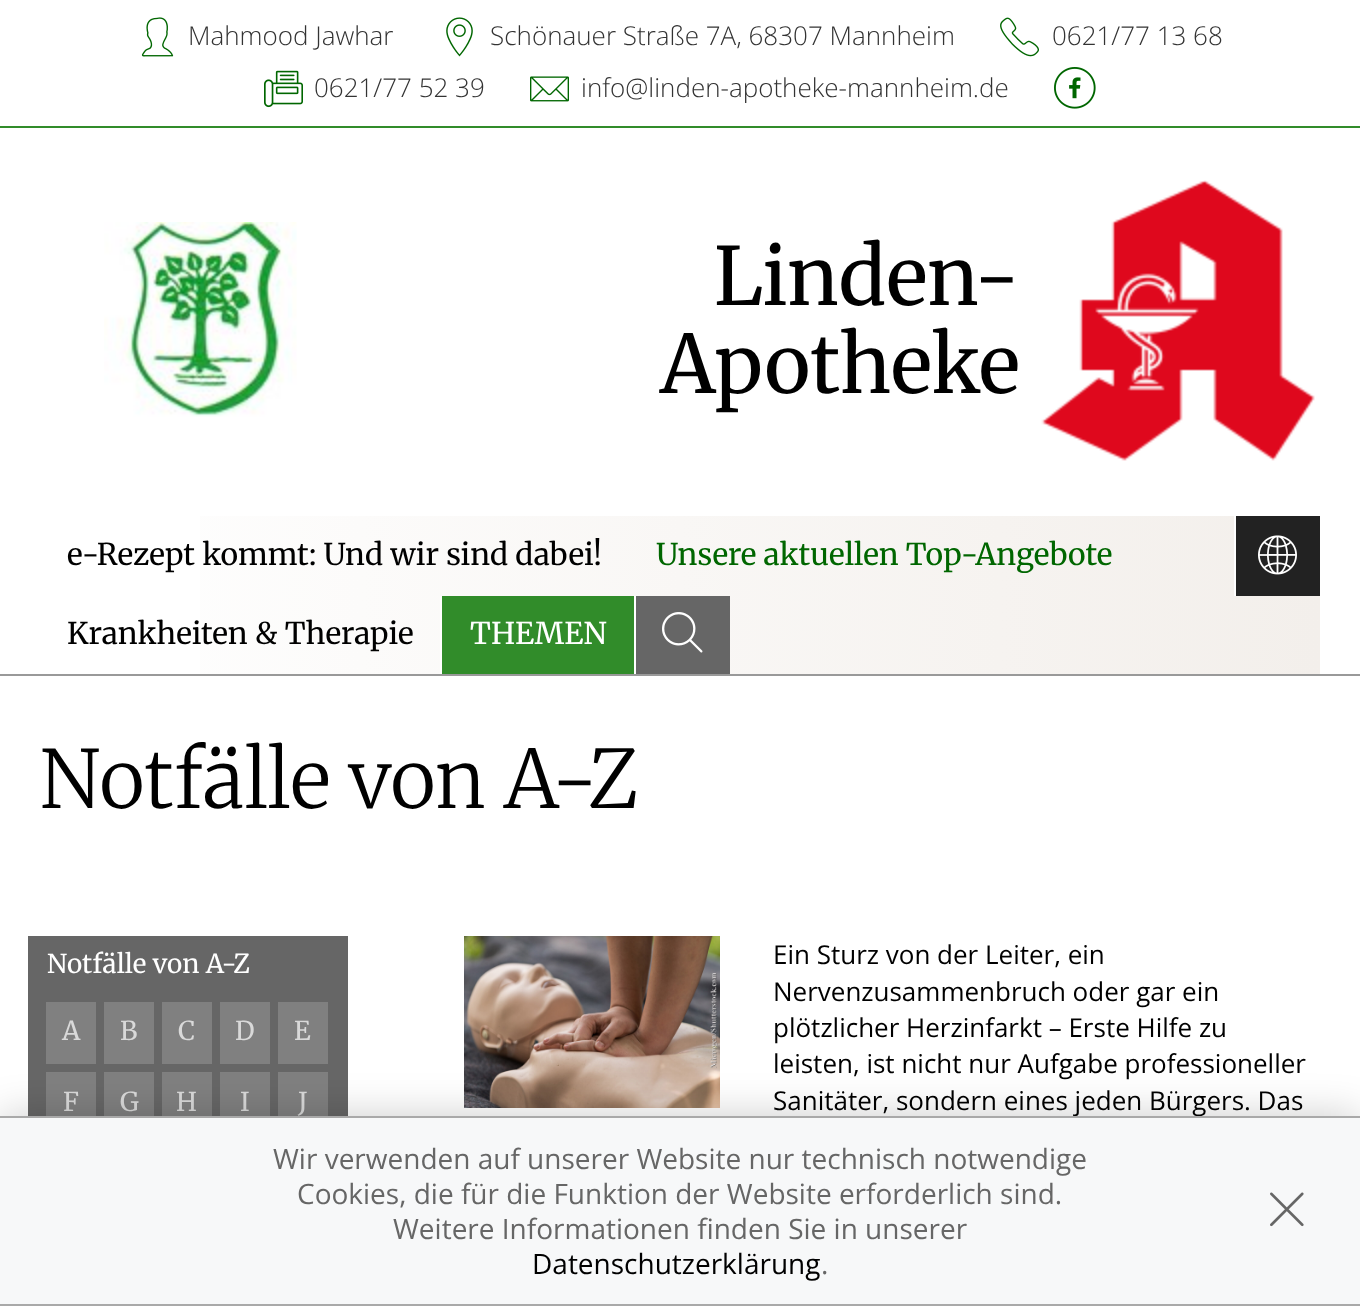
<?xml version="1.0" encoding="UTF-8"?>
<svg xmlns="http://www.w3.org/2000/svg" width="1360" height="1306">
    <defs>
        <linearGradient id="g1" gradientUnits="userSpaceOnUse" x1="40" y1="595" x2="1320" y2="595"><stop offset="0" stop-color="#FFFFFF"/><stop offset="1" stop-color="#F3EFEB"/></linearGradient>
        <filter id="blur1" x="-50%" y="-200%" width="200%" height="500%"><feGaussianBlur stdDeviation="20"/></filter>
    </defs>
    <rect width="100%" height="100%" fill="#FFFFFF"/>
    <rect x="0" y="126" width="1360" height="2" fill="#318C2A"/>
    <image x="141" y="17" width="33" height="40" href="img_01.png"/>
    <text x="188" y="45" font-family="Open Sans" font-size="26" font-weight="300" fill="#333333">Mahmood Jawhar</text>
    <image x="446" y="17" width="27" height="40" href="img_02.png"/>
    <text x="490" y="45" font-family="Open Sans" font-size="26" font-weight="300" fill="#333333">Schönauer Straße 7A, 68307 Mannheim</text>
    <image x="1000" y="17" width="39" height="40" href="img_03.png"/>
    <text x="1052" y="45" font-family="Open Sans" font-size="26" font-weight="300" fill="#333333">0621/77 13 68</text>
    <image x="264" y="70" width="39" height="38" href="img_04.png"/>
    <text x="314" y="97" font-family="Open Sans" font-size="26" font-weight="300" fill="#333333">0621/77 52 39</text>
    <image x="530" y="76" width="39" height="26" href="img_05.png"/>
    <text x="581" y="97" font-family="Open Sans" font-size="26" font-weight="300" fill="#333333">info@linden-apotheke-mannheim.de</text>
    <image x="1054" y="67" width="42" height="42" href="img_06.png"/>
    <image x="104" y="222" width="193" height="195" href="img_07.png"/>
    <image x="1041" y="180" width="274" height="281" href="img_08.png"/>
    <text x="714" y="305" font-family="'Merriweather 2'" font-size="80" fill="#000000">Linden-</text>
    <text x="660" y="393" font-family="'Merriweather 2'" font-size="80" fill="#000000">Apotheke</text>
    <rect x="200" y="516" width="1120" height="158" fill="url(#g1)"/>
    <text x="67" y="565" font-family="Merriweather" font-size="30" fill="#000000">e-Rezept kommt: Und wir sind dabei!</text>
    <text x="656" y="565" font-family="Merriweather" font-size="30" fill="#006600">Unsere aktuellen Top-Angebote</text>
    <rect x="1234" y="516" width="2" height="80" fill="#FFFFFF"/>
    <rect x="1236" y="516" width="84" height="80" fill="#222222"/>
    <image x="1258" y="535" width="39" height="40" href="img_09.png"/>
    <text x="67" y="644" font-family="Merriweather" font-size="30" fill="#000000">Krankheiten &amp; Therapie</text>
    <rect x="440" y="596" width="2" height="78" fill="#FFFFFF"/>
    <rect x="442" y="596" width="192" height="78" fill="#318C2A"/>
    <text x="470" y="644" font-family="Merriweather" font-size="30" fill="#FFFFFF">THEMEN</text>
    <rect x="634" y="596" width="2" height="78" fill="#FFFFFF"/>
    <rect x="636" y="596" width="94" height="78" fill="#666666"/>
    <image x="662" y="612" width="41" height="41" href="img_10.png"/>
    <rect x="0" y="674" width="1360" height="2" fill="#999999"/>
    <text x="40" y="808" font-family="Merriweather" font-size="80" font-weight="300" fill="#000000">Notfälle von A-Z</text>
    <rect x="28" y="936" width="320" height="180" fill="#666666"/>
    <text x="47" y="973" font-family="Merriweather" font-size="26" fill="#FFFFFF">Notfälle von A-Z</text>
    <rect x="46" y="1002" width="50" height="62" fill="#808080"/>
    <text x="62" y="1040" font-family="Merriweather" font-size="26" fill="#D9D9D9">A</text>
    <rect x="104" y="1002" width="50" height="62" fill="#808080"/>
    <text x="120" y="1040" font-family="Merriweather" font-size="26" fill="#D9D9D9">B</text>
    <rect x="162" y="1002" width="50" height="62" fill="#808080"/>
    <text x="178" y="1040" font-family="Merriweather" font-size="26" fill="#D9D9D9">C</text>
    <rect x="220" y="1002" width="50" height="62" fill="#808080"/>
    <text x="235" y="1040" font-family="Merriweather" font-size="26" fill="#D9D9D9">D</text>
    <rect x="278" y="1002" width="50" height="62" fill="#808080"/>
    <text x="294" y="1040" font-family="Merriweather" font-size="26" fill="#D9D9D9">E</text>
    <rect x="46" y="1072" width="50" height="44" fill="#808080"/>
    <text x="63" y="1111" font-family="Merriweather" font-size="26" fill="#D9D9D9">F</text>
    <rect x="104" y="1072" width="50" height="44" fill="#808080"/>
    <text x="120" y="1111" font-family="Merriweather" font-size="26" fill="#D9D9D9">G</text>
    <rect x="162" y="1072" width="50" height="44" fill="#808080"/>
    <text x="176" y="1111" font-family="Merriweather" font-size="26" fill="#D9D9D9">H</text>
    <rect x="220" y="1072" width="50" height="44" fill="#808080"/>
    <text x="240" y="1111" font-family="Merriweather" font-size="26" fill="#D9D9D9">I</text>
    <rect x="278" y="1072" width="50" height="44" fill="#808080"/>
    <text x="298" y="1111" font-family="Merriweather" font-size="26" fill="#D9D9D9">J</text>
    <image x="464" y="936" width="256" height="172" href="img_11.png"/>
    <text font-family="Open Sans" font-size="26" fill="#000000">
        <tspan x="773" y="964">Ein Sturz von der Leiter, ein</tspan>
        <tspan x="773" y="1001">Nervenzusammenbruch oder gar ein</tspan>
        <tspan x="773" y="1037">plötzlicher Herzinfarkt – Erste Hilfe zu</tspan>
        <tspan x="773" y="1073">leisten, ist nicht nur Aufgabe professioneller</tspan>
        <tspan x="773" y="1110">Sanitäter, sondern eines jeden Bürgers. Das</tspan>
    </text>
    <rect x="0" y="1116" width="1360" height="190" fill="#000000" fill-opacity="0.2" filter="url(#blur1)"/>
    <rect x="0" y="1118" width="1360" height="186" fill="#F7F8F9"/>
    <rect x="0" y="1116" width="1360" height="2" fill="#A9A9A9"/>
    <rect x="0" y="1304" width="1360" height="2" fill="#A9A9A9"/>
    <text x="273" y="1169" font-family="Open Sans" font-size="28" fill="#666666">Wir verwenden auf unserer Website nur technisch notwendige</text>
    <text x="297" y="1204" font-family="Open Sans" font-size="28" fill="#666666">Cookies, die für die Funktion der Website erforderlich sind.</text>
    <text x="393" y="1239" font-family="Open Sans" font-size="28" fill="#666666">Weitere Informationen finden Sie in unserer</text>
    <text x="532" y="1274" font-family="Open Sans" font-size="28" fill="#000000">Datenschutzerklärung</text>
    <text x="821" y="1274" font-family="Open Sans" font-size="28" fill="#666666">.</text>
    <image x="1270" y="1192" width="34" height="35" href="img_12.png"/>
</svg>
